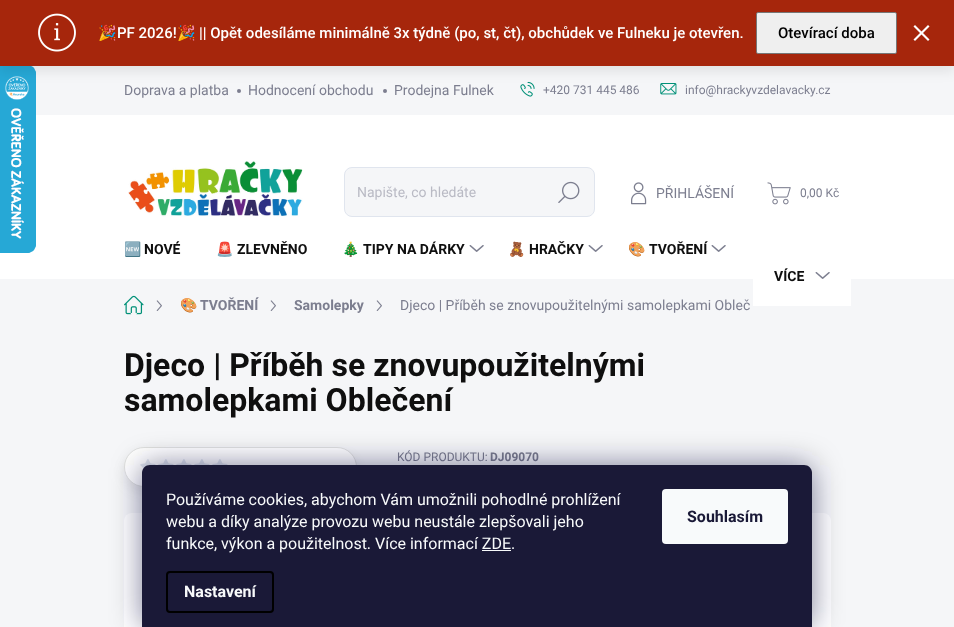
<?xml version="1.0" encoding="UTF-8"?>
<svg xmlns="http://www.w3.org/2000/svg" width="954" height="627">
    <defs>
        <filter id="blur1" x="-50%" y="-200%" width="200%" height="500%"><feGaussianBlur stdDeviation="6"/></filter>
        <clipPath id="clip1"><rect x="124" y="219" width="707" height="60"/></clipPath>
        <filter id="blur2" x="-50%" y="-200%" width="200%" height="500%"><feGaussianBlur stdDeviation="15"/></filter>
    </defs>
    <rect width="100%" height="100%" fill="#F5F6F8"/>
    <rect x="0" y="115" width="954" height="164" fill="#FFFFFF"/>
    <image x="0" y="66" width="36" height="187" href="img_01.png"/>
    <circle cx="239" cy="91" r="2" fill="#7C7E8F"/>
    <circle cx="385" cy="91" r="2" fill="#7C7E8F"/>
    <image x="520" y="81" width="15" height="16" href="img_03.png"/>
    <image x="660" y="83" width="17" height="12" href="img_04.png"/>
    <rect x="0" y="6" width="954" height="66" fill="#000000" fill-opacity="0.08" filter="url(#blur1)"/>
    <rect x="0" y="0" width="954" height="66" fill="#A6260C"/>
    <image x="38" y="13" width="38" height="39" href="img_02.png"/>
    <text x="98" y="38" font-family="Noto Color Emoji" font-size="15" fill="#FFFFFF">🎉</text>
    <text x="117" y="38" font-family="Roboto" font-size="15" font-weight="500" fill="#FFFFFF">PF 2026!</text>
    <text x="177" y="38" font-family="Noto Color Emoji" font-size="15" fill="#FFFFFF">🎉</text>
    <text x="199" y="38" font-family="Roboto" font-size="15" font-weight="500" fill="#FFFFFF">|| Opět odesíláme minimálně 3x týdně (po, st, čt), obchůdek ve Fulneku je otevřen.</text>
    <rect x="756.5" y="12.5" width="140" height="41" rx="1.5" fill="#EFEFEF" stroke="#767676"/>
    <text x="778" y="38" font-family="Roboto" font-size="15" font-weight="500" fill="#000000">Otevírací doba</text>
    <path d="M 928 25 L 929.5 26.5 L 915 41 L 913.5 39.5 Z" fill="#FFFFFF"/>
    <path d="M 915 25 L 929.5 39.5 L 928 41 L 913.5 26.5 Z" fill="#FFFFFF"/>
    <text x="124" y="95" font-family="Roboto" font-size="14" fill="#7C7E8F">Doprava a platba</text>
    <text x="248" y="95" font-family="Roboto" font-size="14" fill="#7C7E8F">Hodnocení obchodu</text>
    <text x="394" y="95" font-family="Roboto" font-size="14" fill="#7C7E8F">Prodejna Fulnek</text>
    <text x="543" y="94" font-family="Roboto" font-size="12" fill="#7C7E8F">+420 731 445 486</text>
    <text x="685" y="94" font-family="Roboto" font-size="12" fill="#7C7E8F">info@hrackyvzdelavacky.cz</text>
    <image x="128" y="161" width="175" height="56" href="img_05.png"/>
    <rect x="344.5" y="167.5" width="250" height="49" rx="7.5" fill="#F5F6F8" stroke="#E0E5EE"/>
    <text x="357" y="197" font-family="Roboto" font-size="14" fill="#B9BAC4">Napište, co hledáte</text>
    <image x="558" y="181" width="22" height="22" href="img_06.png"/>
    <image x="631" y="182" width="16" height="23" href="img_07.png"/>
    <text x="656" y="198" font-family="Roboto" font-size="14" fill="#7C7E8F">PŘIHLÁŠENÍ</text>
    <image x="767" y="182" width="24" height="23" href="img_08.png"/>
    <text x="800" y="197" font-family="Roboto" font-size="12" fill="#7C7E8F">0,00 Kč</text>
    <g clip-path="url(#clip1)">
        <text x="124" y="254" font-family="Noto Color Emoji" font-size="14" font-weight="700" fill="#0F0F0F">🆕</text>
    </g>
    <text x="144" y="254" font-family="Roboto" font-size="14" font-weight="700" fill="#0F0F0F">NOVÉ</text>
    <text x="216" y="254" font-family="Noto Color Emoji" font-size="14" font-weight="700" fill="#0F0F0F">🚨</text>
    <text x="237" y="254" font-family="Roboto" font-size="14" font-weight="700" fill="#0F0F0F">ZLEVNĚNO</text>
    <text x="342" y="254" font-family="Noto Color Emoji" font-size="14" font-weight="700" fill="#0F0F0F">🎄</text>
    <text x="363" y="254" font-family="Roboto" font-size="14" font-weight="700" fill="#0F0F0F">TIPY NA DÁRKY</text>
    <image x="469" y="245" width="15" height="7" href="img_09.png"/>
    <text x="508" y="254" font-family="Noto Color Emoji" font-size="14" font-weight="700" fill="#0F0F0F">🧸</text>
    <text x="529" y="254" font-family="Roboto" font-size="14" font-weight="700" fill="#0F0F0F">HRAČKY</text>
    <image x="588" y="245" width="15" height="7" href="img_09.png"/>
    <text x="628" y="254" font-family="Noto Color Emoji" font-size="14" font-weight="700" fill="#0F0F0F">🎨</text>
    <text x="649" y="254" font-family="Roboto" font-size="14" font-weight="700" fill="#0F0F0F">TVOŘENÍ</text>
    <image x="711" y="245" width="15" height="7" href="img_09.png"/>
    <rect x="753" y="279" width="98" height="27" fill="#FFFFFF"/>
    <text x="774" y="281" font-family="Roboto" font-size="14" font-weight="700" fill="#0F0F0F">VÍCE</text>
    <image x="815" y="272" width="15" height="7" href="img_09.png"/>
    <image x="124" y="295" width="20" height="20" href="img_10.png"/>
    <image x="156" y="300" width="6" height="11" href="img_11.png"/>
    <text x="180" y="310" font-family="Noto Color Emoji" font-size="14" font-weight="700" fill="#7C7E8F">🎨</text>
    <text x="200" y="310" font-family="Roboto" font-size="14" font-weight="700" fill="#7C7E8F">TVOŘENÍ</text>
    <image x="270" y="300" width="6" height="11" href="img_11.png"/>
    <text x="294" y="310" font-family="Roboto" font-size="14" font-weight="700" fill="#7C7E8F">Samolepky</text>
    <image x="376" y="300" width="6" height="11" href="img_11.png"/>
    <text x="400" y="310" font-family="Roboto" font-size="14" fill="#7C7E8F">Djeco | Příběh se znovupoužitelnými samolepkami Obleč</text>
    <text font-family="Roboto" font-size="32" font-weight="700" fill="#0F0F0F">
        <tspan x="124" y="376">Djeco | Příběh se znovupoužitelnými</tspan>
        <tspan x="124" y="411">samolepkami Oblečení</tspan>
    </text>
    <rect x="124" y="453" width="233" height="40" rx="20" fill="#000000" fill-opacity="0.08" filter="url(#blur1)"/>
    <rect x="124.5" y="447.5" width="232" height="39" rx="19.5" fill="#FFFFFF" stroke="#DFE0DF"/>
    <image x="140" y="459" width="16" height="14" href="img_12.png"/>
    <image x="158" y="459" width="16" height="6" href="img_13.png"/>
    <image x="176" y="459" width="16" height="6" href="img_13.png"/>
    <image x="194" y="459" width="16" height="6" href="img_13.png"/>
    <image x="212" y="459" width="16" height="6" href="img_13.png"/>
    <text x="397" y="461" font-family="Roboto" font-size="12" fill="#7C7E8F">KÓD PRODUKTU:</text>
    <text x="490" y="461" font-family="Roboto" font-size="12" font-weight="700" fill="#7C7E8F">DJ09070</text>
    <image x="124" y="513" width="707" height="114" href="img_14.png"/>
    <rect x="142" y="465" width="670" height="162" rx="8" fill="#1B1939" fill-opacity="0.5" filter="url(#blur2)"/>
    <path d="M 150 465 H 804 C 808.5 465 812 468.5 812 473 V 627 H 142 V 473 C 142 468.5 145.5 465 150 465 Z" fill="#1A1937"/>
    <text font-family="Roboto" font-size="16" fill="#F8FAFB">
        <tspan x="166" y="505">Používáme cookies, abychom Vám umožnili pohodlné prohlížení</tspan>
        <tspan x="166" y="527">webu a díky analýze provozu webu neustále zlepšovali jeho</tspan>
        <tspan x="166" y="549">funkce, výkon a použitelnost. Více informací ZDE.</tspan>
    </text>
    <rect x="482" y="550" width="29" height="1" fill="#F8FAFB"/>
    <rect x="167" y="572" width="106" height="40" rx="3" fill="none" stroke="#000000" stroke-width="2"/>
    <text x="184" y="597" font-family="Roboto" font-size="16" font-weight="700" fill="#F8FAFB">Nastavení</text>
    <rect x="662" y="489" width="126" height="55" rx="4" fill="#F8FAFB"/>
    <text x="687" y="522" font-family="Roboto" font-size="16" font-weight="700" fill="#1A1937">Souhlasím</text>
</svg>
